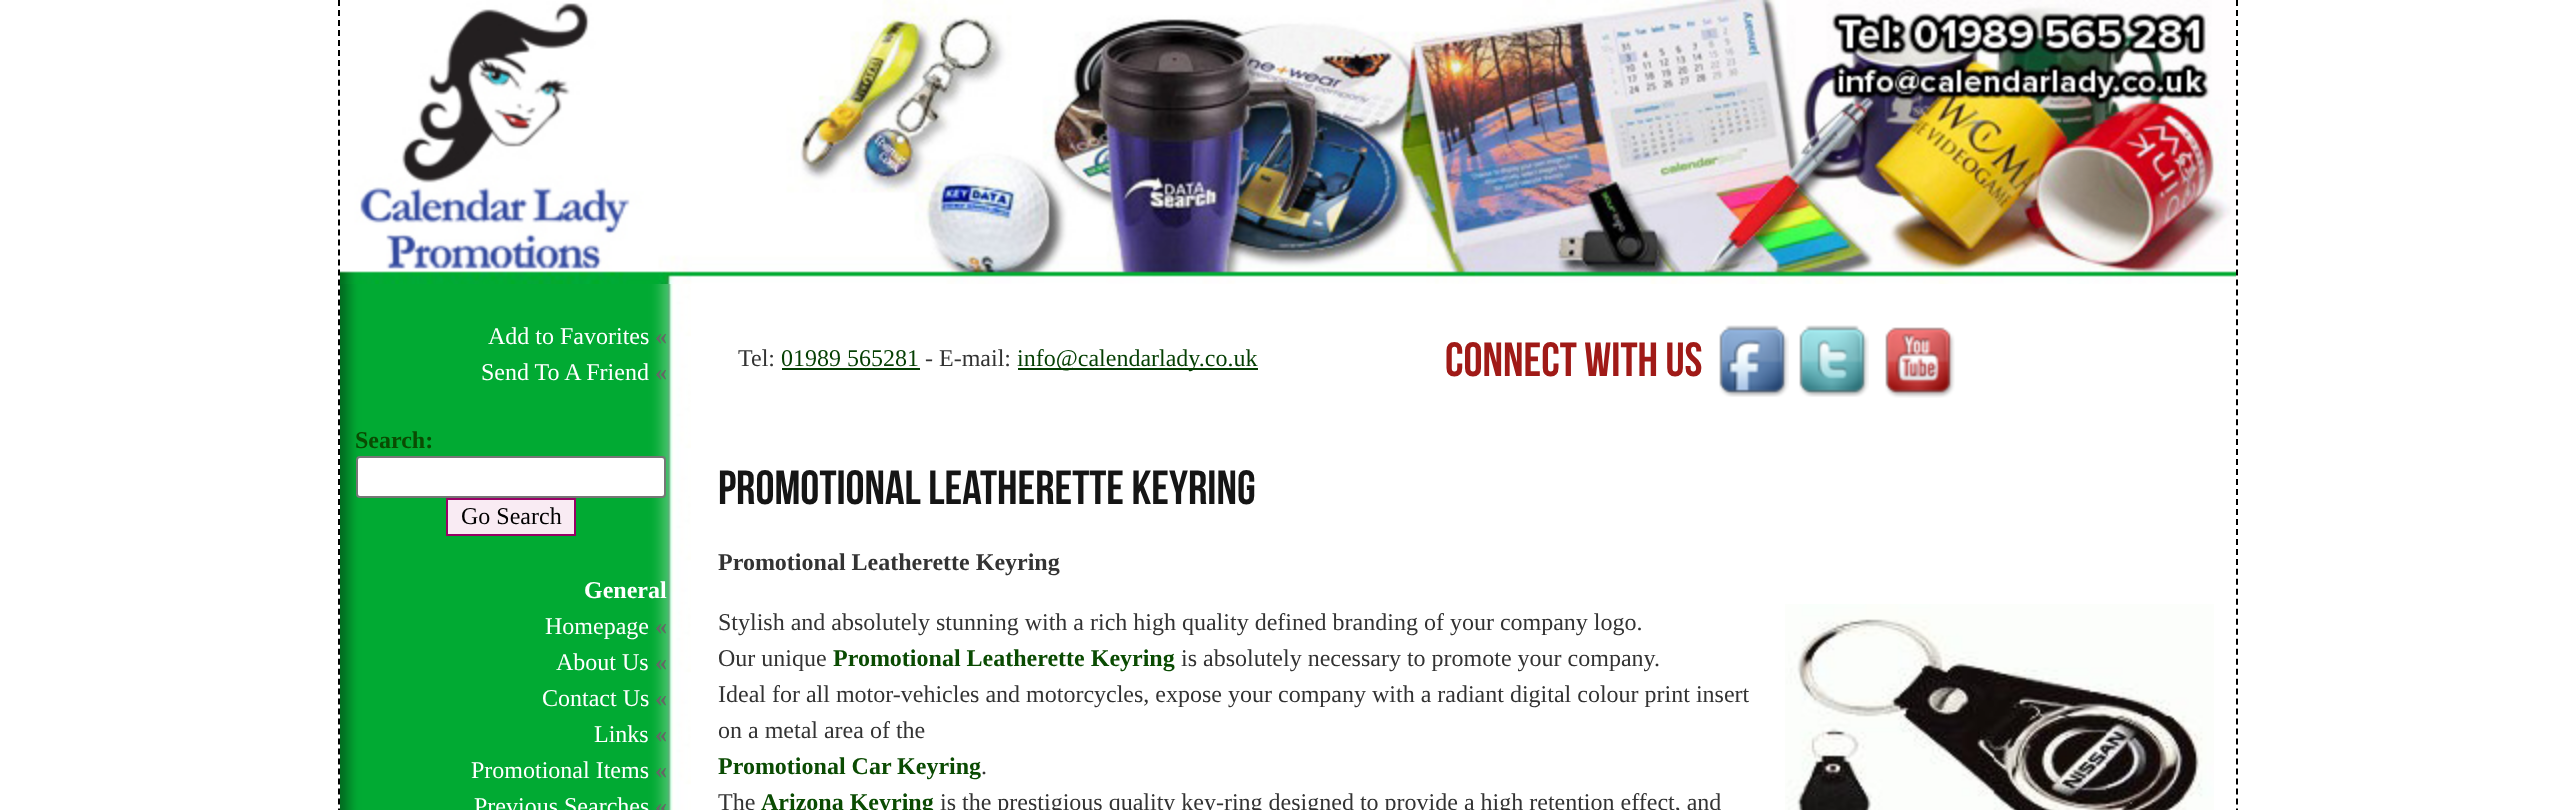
<?xml version="1.0" encoding="UTF-8"?>
<svg xmlns="http://www.w3.org/2000/svg" width="2573" height="810">
    <rect width="100%" height="100%" fill="#FFFFFF"/>
    <image x="340" y="284" width="351" height="526" href="img_01.png"/>
    <path d="M 2237 0 V 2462" fill="none" stroke="#000000" stroke-width="2" stroke-dasharray="6 3.98"/>
    <path d="M 339 0 V 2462" fill="none" stroke="#000000" stroke-width="2" stroke-dasharray="6 3.98"/>
    <image x="340" y="0" width="1896" height="284" href="img_02.png"/>
    <text x="488" y="344" font-family="Liberation Serif" font-size="24" fill="#FFFFFF">Add to Favorites</text>
    <text x="655" y="344" font-family="Liberation Serif" font-size="24" font-weight="700" fill="#666666">«</text>
    <text x="481" y="380" font-family="Liberation Serif" font-size="24" fill="#FFFFFF">Send To A Friend</text>
    <text x="655" y="380" font-family="Liberation Serif" font-size="24" font-weight="700" fill="#666666">«</text>
    <text x="355" y="448" font-family="Liberation Serif" font-size="24" font-weight="700" fill="#0A4B02">Search:</text>
    <rect x="357" y="457" width="308" height="40" rx="3" fill="#FFFFFF" stroke="#767676" stroke-width="2"/>
    <rect x="447" y="499" width="128" height="36" fill="#F9EBF3" stroke="#990066" stroke-width="2"/>
    <text x="461" y="524" font-family="Liberation Serif" font-size="24" fill="#000000">Go Search</text>
    <text x="584" y="598" font-family="Liberation Serif" font-size="24" font-weight="700" fill="#FFFFFF">General</text>
    <text x="545" y="634" font-family="Liberation Serif" font-size="24" fill="#FFFFFF">Homepage</text>
    <text x="655" y="634" font-family="Liberation Serif" font-size="24" font-weight="700" fill="#666666">«</text>
    <text x="556" y="670" font-family="Liberation Serif" font-size="24" fill="#FFFFFF">About Us</text>
    <text x="655" y="670" font-family="Liberation Serif" font-size="24" font-weight="700" fill="#666666">«</text>
    <text x="542" y="706" font-family="Liberation Serif" font-size="24" fill="#FFFFFF">Contact Us</text>
    <text x="655" y="706" font-family="Liberation Serif" font-size="24" font-weight="700" fill="#666666">«</text>
    <text x="594" y="742" font-family="Liberation Serif" font-size="24" fill="#FFFFFF">Links</text>
    <text x="655" y="742" font-family="Liberation Serif" font-size="24" font-weight="700" fill="#666666">«</text>
    <text x="471" y="778" font-family="Liberation Serif" font-size="24" fill="#FFFFFF">Promotional Items</text>
    <text x="655" y="778" font-family="Liberation Serif" font-size="24" font-weight="700" fill="#666666">«</text>
    <text x="474" y="814" font-family="Liberation Serif" font-size="24" fill="#FFFFFF">Previous Searches</text>
    <text x="655" y="814" font-family="Liberation Serif" font-size="24" font-weight="700" fill="#666666">«</text>
    <text x="738" y="366" font-family="Liberation Serif" font-size="24" fill="#333333">Tel:</text>
    <text x="781" y="366" font-family="Liberation Serif" font-size="24" fill="#053F03">01989 565281</text>
    <rect x="782" y="368" width="138" height="2" fill="#053F03"/>
    <text x="925" y="366" font-family="Liberation Serif" font-size="24" fill="#333333">- E-mail:</text>
    <rect x="1018" y="368" width="240" height="2" fill="#053F03"/>
    <text x="1017" y="366" font-family="Liberation Serif" font-size="24" fill="#053F03">info@calendarlady.co.uk</text>
    <text x="1445" y="376" font-family="Bebas Neue" font-size="48" fill="#A01A17">CONNECT WITH US</text>
    <image x="1719" y="325" width="70" height="72" href="img_03.png"/>
    <image x="1799" y="325" width="70" height="72" href="img_04.png"/>
    <image x="1885" y="327" width="70" height="71" href="img_05.png"/>
    <text x="718" y="504" font-family="Bebas Neue" font-size="48" fill="#151515">PROMOTIONAL LEATHERETTE KEYRING</text>
    <text x="718" y="570" font-family="Liberation Serif" font-size="24" font-weight="700" fill="#333333">Promotional Leatherette Keyring</text>
    <text x="718" y="630" font-family="Liberation Serif" font-size="24" fill="#333333">Stylish and absolutely stunning with a rich high quality defined branding of your company logo.</text>
    <image x="1785" y="604" width="429" height="206" href="img_06.png"/>
    <text x="718" y="666" font-family="Liberation Serif" font-size="24" fill="#333333">Our unique</text>
    <text x="833" y="666" font-family="Liberation Serif" font-size="24" font-weight="700" fill="#0A4B02">Promotional Leatherette Keyring</text>
    <text x="1181" y="666" font-family="Liberation Serif" font-size="24" fill="#333333">is absolutely necessary to promote your company.</text>
    <text font-family="Liberation Serif" font-size="24" fill="#333333">
        <tspan x="718" y="702">Ideal for all motor-vehicles and motorcycles, expose your company with a radiant digital colour print insert</tspan>
        <tspan x="718" y="738">on a metal area of the</tspan>
    </text>
    <text x="718" y="774" font-family="Liberation Serif" font-size="24" font-weight="700" fill="#0A4B02">Promotional Car Keyring</text>
    <text x="981" y="774" font-family="Liberation Serif" font-size="24" fill="#333333">.</text>
    <text x="718" y="810" font-family="Liberation Serif" font-size="24" fill="#333333">The</text>
    <text x="761" y="810" font-family="Liberation Serif" font-size="24" font-weight="700" fill="#0A4B02">Arizona Keyring</text>
    <text x="940" y="810" font-family="Liberation Serif" font-size="24" fill="#333333">is the prestigious quality key-ring designed to provide a high retention effect, and</text>
</svg>
